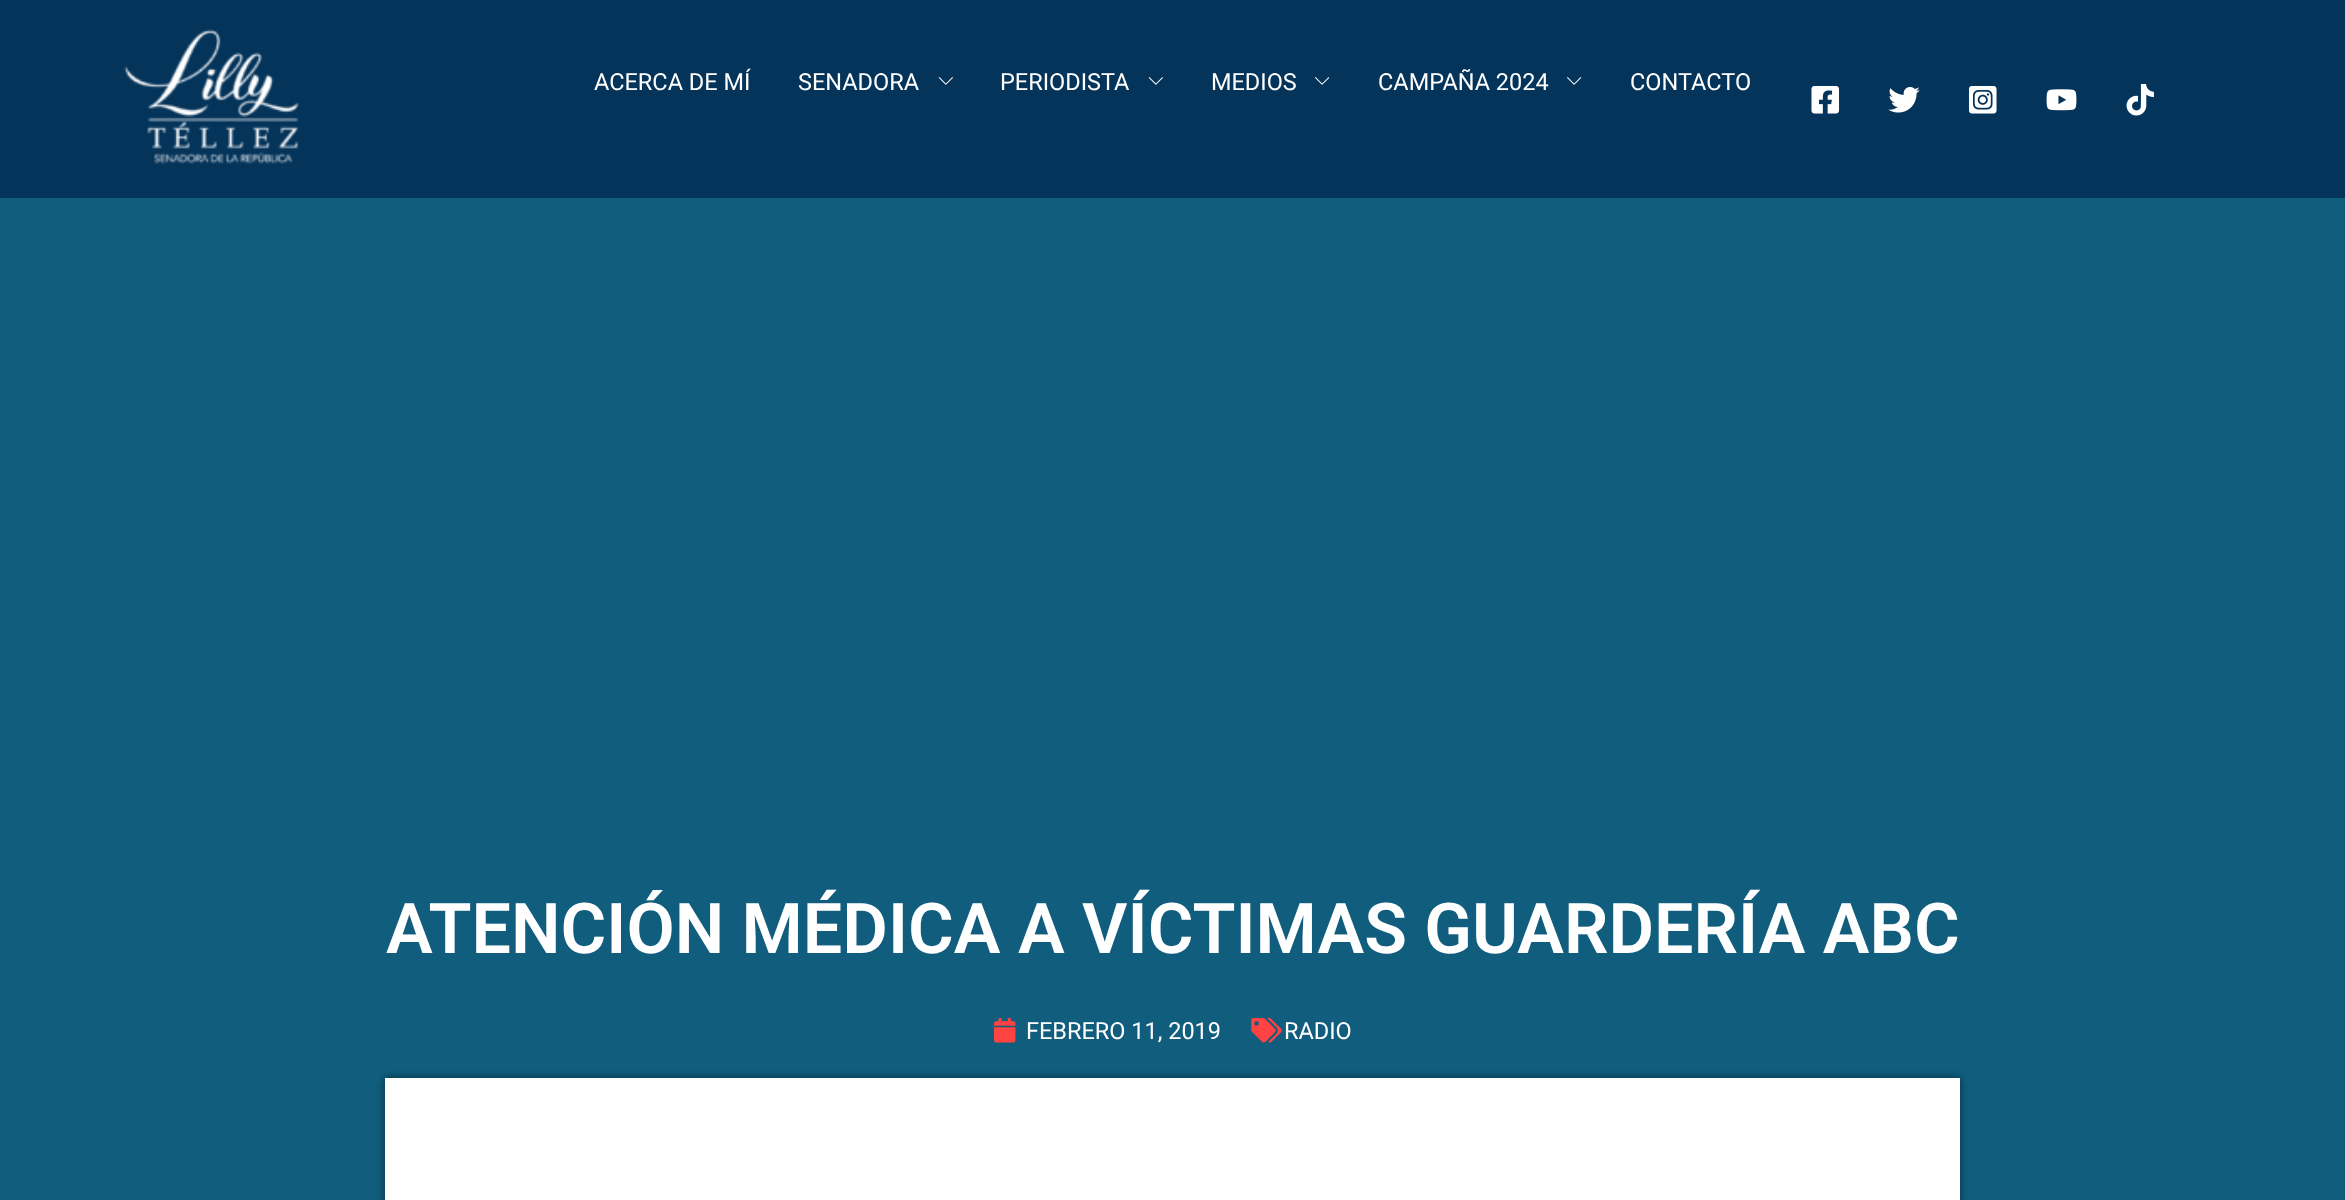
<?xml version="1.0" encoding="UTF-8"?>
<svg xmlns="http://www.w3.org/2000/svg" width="2345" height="1200">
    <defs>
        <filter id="blur1" x="-50%" y="-200%" width="200%" height="500%"><feGaussianBlur stdDeviation="4.5"/></filter>
    </defs>
    <rect width="100%" height="100%" fill="#105D7D"/>
    <rect x="0" y="0" width="2345" height="198" fill="#05345A"/>
    <image x="124" y="29" width="175" height="135" href="img_01.png"/>
    <text x="594" y="90" font-family="Roboto" font-size="23.5" fill="#FFFFFF">ACERCA DE MÍ</text>
    <text x="798" y="90" font-family="Roboto" font-size="23.5" fill="#FFFFFF">SENADORA</text>
    <image x="938" y="77" width="15" height="8" href="img_02.png"/>
    <text x="1000" y="90" font-family="Roboto" font-size="23.5" fill="#FFFFFF">PERIODISTA</text>
    <image x="1148" y="77" width="15" height="8" href="img_02.png"/>
    <text x="1211" y="90" font-family="Roboto" font-size="23.5" fill="#FFFFFF">MEDIOS</text>
    <image x="1315" y="77" width="15" height="8" href="img_03.png"/>
    <text x="1378" y="90" font-family="Roboto" font-size="23.5" fill="#FFFFFF">CAMPAÑA 2024</text>
    <image x="1567" y="77" width="15" height="8" href="img_03.png"/>
    <text x="1630" y="90" font-family="Roboto" font-size="23.5" fill="#FFFFFF">CONTACTO</text>
    <image x="1811" y="86" width="29" height="28" href="img_04.png"/>
    <image x="1888" y="87" width="32" height="26" href="img_05.png"/>
    <image x="1968" y="86" width="29" height="28" href="img_06.png"/>
    <image x="2046" y="89" width="31" height="22" href="img_07.png"/>
    <image x="2126" y="84" width="28" height="32" href="img_08.png"/>
    <text x="386" y="953" font-family="Roboto" font-size="70" font-weight="600" fill="#FFFFFF">ATENCIÓN MÉDICA A VÍCTIMAS GUARDERÍA ABC</text>
    <image x="994" y="1018" width="22" height="25" href="img_09.png"/>
    <text x="1026" y="1039" font-family="Roboto" font-size="23.5" fill="#FFFFFF">FEBRERO 11, 2019</text>
    <image x="1251" y="1018" width="31" height="25" href="img_10.png"/>
    <text x="1284" y="1039" font-family="Roboto" font-size="23.5" fill="#FFFFFF">RADIO</text>
    <rect x="385" y="1078" width="1575" height="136" fill="#000000" fill-opacity="0.5" filter="url(#blur1)"/>
    <rect x="385" y="1078" width="1575" height="122" fill="#FFFFFF"/>
</svg>
